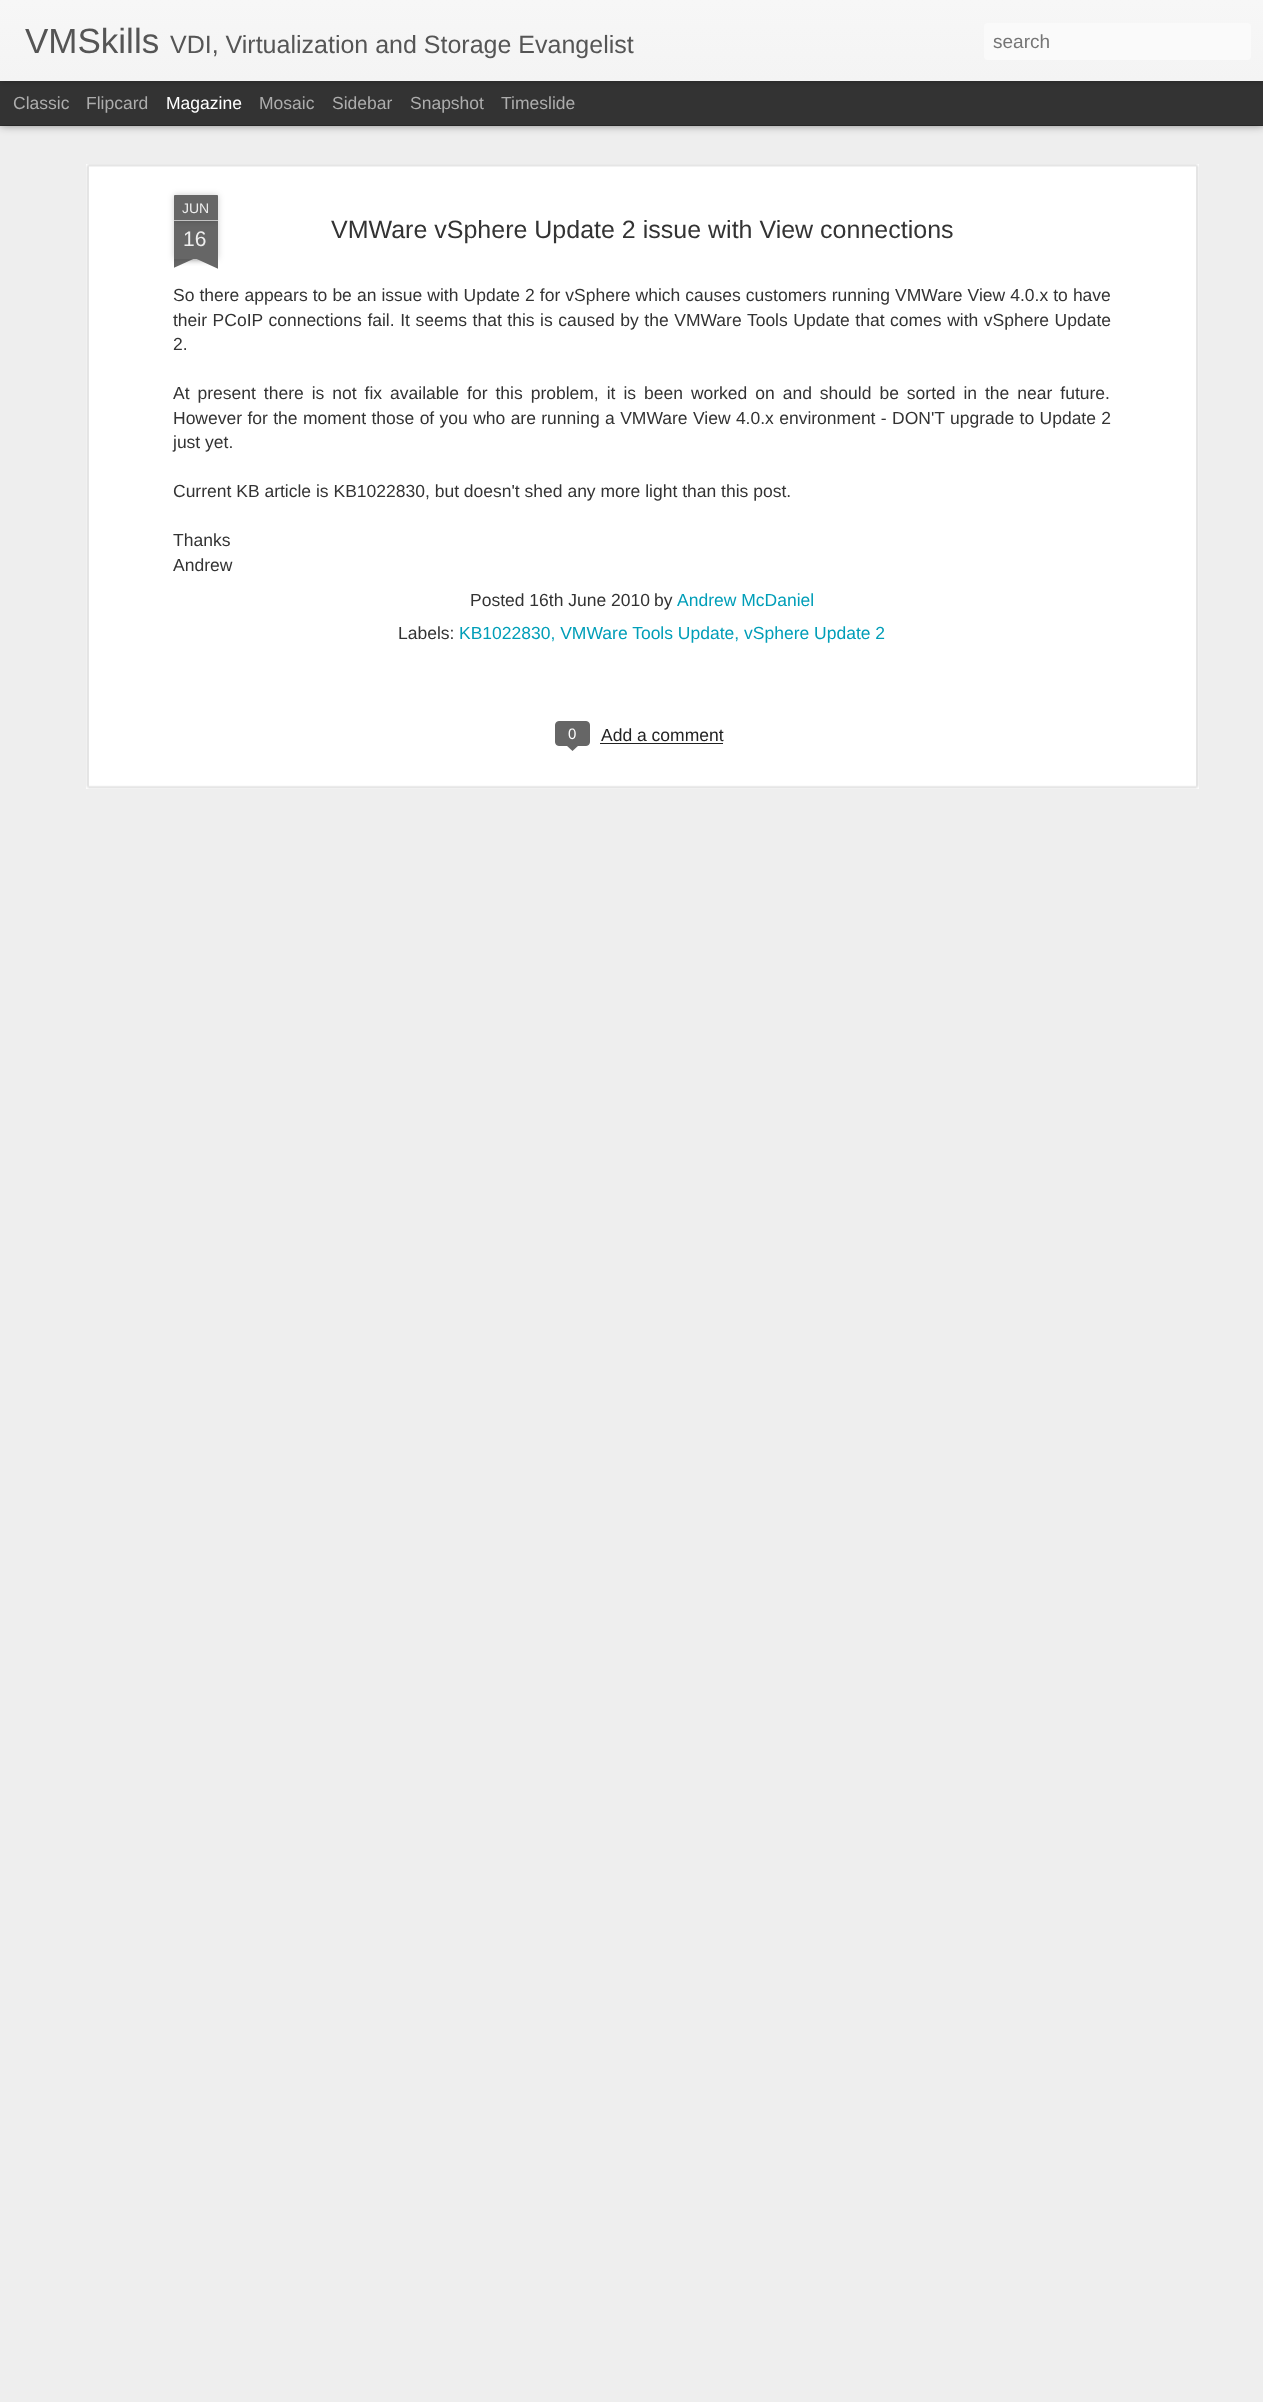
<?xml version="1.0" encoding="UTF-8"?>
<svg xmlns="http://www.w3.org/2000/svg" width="1263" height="2402">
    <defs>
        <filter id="blur1" x="-50%" y="-200%" width="200%" height="500%"><feGaussianBlur stdDeviation="5"/></filter>
        <filter id="blur2" x="-50%" y="-200%" width="200%" height="500%"><feGaussianBlur stdDeviation="3"/></filter>
        <linearGradient id="g1" gradientUnits="userSpaceOnUse" x1="0" y1="0" x2="0" y2="81"><stop offset="0" stop-color="#F7F7F7"/><stop offset="1" stop-color="#F4F4F4"/></linearGradient>
        <clipPath id="clip1"><rect x="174" y="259" width="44" height="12"/></clipPath>
        <clipPath id="clip2"><rect x="174" y="259" width="44" height="12"/></clipPath>
    </defs>
    <rect width="100%" height="100%" fill="#333333"/>
    <rect x="0" y="126" width="1263" height="2276" fill="#EEEEEE"/>
    <rect x="0" y="81" width="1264" height="44" fill="#000000" fill-opacity="0.5" filter="url(#blur1)"/>
    <rect x="0" y="81" width="1263" height="44" fill="#333333"/>
    <rect x="0" y="0" width="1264" height="81" fill="#000000" fill-opacity="0.3" filter="url(#blur2)"/>
    <rect x="0" y="0" width="1263" height="81" fill="url(#g1)"/>
    <text x="25" y="53" font-family="Liberation Sans" font-size="35" fill="#555555">VMSkills</text>
    <text x="170" y="53" font-family="Liberation Sans" font-size="25" fill="#555555">VDI, Virtualization and Storage Evangelist</text>
    <rect x="984" y="23" width="267" height="37" rx="4" fill="#FAFAFA"/>
    <text x="993" y="48" font-family="Liberation Sans" font-size="19" fill="#757575">search</text>
    <text x="13" y="109" font-family="Liberation Sans" font-size="17.5" fill="#ADADAD">Classic</text>
    <text x="86" y="109" font-family="Liberation Sans" font-size="17.5" fill="#ADADAD">Flipcard</text>
    <text x="166" y="109" font-family="Liberation Sans" font-size="17.5" fill="#FFFFFF">Magazine</text>
    <text x="259" y="109" font-family="Liberation Sans" font-size="17.5" fill="#ADADAD">Mosaic</text>
    <text x="332" y="109" font-family="Liberation Sans" font-size="17.5" fill="#ADADAD">Sidebar</text>
    <text x="410" y="109" font-family="Liberation Sans" font-size="17.5" fill="#ADADAD">Snapshot</text>
    <text x="501" y="109" font-family="Liberation Sans" font-size="17.5" fill="#ADADAD">Timeslide</text>
    <rect x="86" y="164" width="1113" height="625" fill="#FFFFFF"/>
    <image x="86" y="164" width="1113" height="625" href="img_01.png"/>
    <rect x="174" y="221" width="44" height="38" fill="#000000" fill-opacity="0.2" filter="url(#blur2)"/>
    <rect x="174" y="221" width="44" height="38" fill="#666666"/>
    <rect x="174" y="195" width="44" height="26" rx="1" fill="#000000" fill-opacity="0.2" filter="url(#blur2)"/>
    <path d="M 175 195 H 217 C 217.5 195 218 195.5 218 196 V 221 H 174 V 196 C 174 195.5 174.5 195 175 195 Z" fill="#666666"/>
    <rect x="174" y="220" width="44" height="1" fill="#C2C2C2"/>
    <text x="182" y="213" font-family="Liberation Sans" font-size="14" fill="#EEEEEE">JUN</text>
    <text x="183" y="246" font-family="Liberation Sans" font-size="21" fill="#EEEEEE">16</text>
    <g clip-path="url(#clip1)">
        <rect x="163" y="246" width="62" height="13" fill="#000000" fill-opacity="0.2" filter="url(#blur2)"/>
    </g>
    <g clip-path="url(#clip2)">
        <path d="M 162 260 L 219 234 L 224 245 L 167 271 Z" fill="#666666"/>
    </g>
    <g clip-path="url(#clip1)">
        <rect x="166" y="246" width="63" height="13" fill="#000000" fill-opacity="0.2" filter="url(#blur2)"/>
    </g>
    <g clip-path="url(#clip2)">
        <path d="M 171 234 L 228 260 L 223 271 L 166 245 Z" fill="#666666"/>
    </g>
    <text x="331" y="238" font-family="Liberation Sans" font-size="25" fill="#333333">VMWare vSphere Update 2 issue with View connections</text>
    <text font-family="Liberation Sans" font-size="17.5" fill="#333333">
        <tspan x="173" y="301" word-spacing="0.2">So there appears to be an issue with Update 2 for vSphere which causes customers running VMWare View 4.0.x to have</tspan>
        <tspan x="173" y="326" word-spacing="0.7">their PCoIP connections fail. It seems that this is caused by the VMWare Tools Update that comes with vSphere Update</tspan>
        <tspan x="173" y="350">2.</tspan>
    </text>
    <text font-family="Liberation Sans" font-size="17.5" fill="#333333">
        <tspan x="173" y="399" word-spacing="3.1">At present there is not fix available for this problem, it is been worked on and should be sorted in the near future.</tspan>
        <tspan x="173" y="424" word-spacing="0.5">However for the moment those of you who are running a VMWare View 4.0.x environment - DON'T upgrade to Update 2</tspan>
        <tspan x="173" y="448">just yet.</tspan>
    </text>
    <text x="173" y="497" font-family="Liberation Sans" font-size="17.5" fill="#333333">Current KB article is KB1022830, but doesn't shed any more light than this post.</text>
    <text font-family="Liberation Sans" font-size="17.5" fill="#333333">
        <tspan x="173" y="546">Thanks</tspan>
        <tspan x="173" y="571">Andrew</tspan>
    </text>
    <text x="470" y="606" font-family="Liberation Sans" font-size="17.5" fill="#333333">Posted 16th June 2010</text>
    <text x="654" y="606" font-family="Liberation Sans" font-size="17.5" fill="#333333">by</text>
    <text x="677" y="606" font-family="Liberation Sans" font-size="17.5" fill="#009EB8">Andrew McDaniel</text>
    <text x="398" y="639" font-family="Liberation Sans" font-size="17.5" fill="#333333">Labels:</text>
    <text x="459" y="639" font-family="Liberation Sans" font-size="17.5" fill="#009EB8">KB1022830, VMWare Tools Update, vSphere Update 2</text>
    <rect x="555.5" y="721.5" width="34" height="24" rx="3.5" fill="#666666" stroke="#666666"/>
    <text x="568" y="739" font-family="Liberation Sans" font-size="15" fill="#FFFFFF">0</text>
    <path d="M 566 745 H 579 L 572.5 751 Z" fill="#666666"/>
    <text x="601" y="741" font-family="Liberation Sans" font-size="17.5" fill="#222222">Add a comment</text>
    <rect x="600" y="743" width="123" height="1" fill="#222222"/>
</svg>
